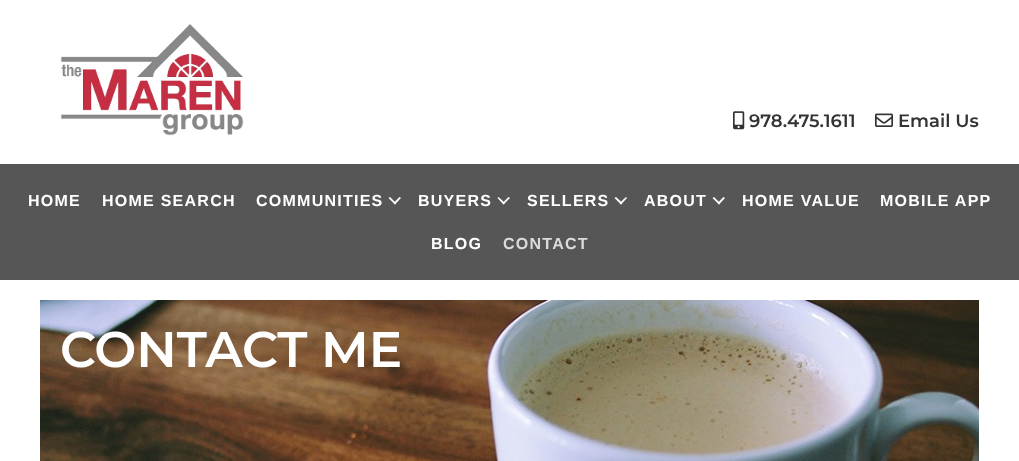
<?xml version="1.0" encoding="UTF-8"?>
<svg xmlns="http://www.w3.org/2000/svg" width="1019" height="461">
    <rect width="100%" height="100%" fill="#FFFFFF"/>
    <image x="60" y="24" width="184" height="112" href="img_01.png"/>
    <image x="733" y="111" width="12" height="19" href="img_02.png"/>
    <text x="749" y="127" font-family="Montserrat" font-size="18" font-weight="600" fill="#333333">978.475.1611</text>
    <image x="875" y="113" width="18" height="14" href="img_03.png"/>
    <text x="898" y="127" font-family="Montserrat" font-size="18" font-weight="600" fill="#333333">Email Us</text>
    <rect x="0" y="164" width="1019" height="116" fill="#565656"/>
    <text x="28" y="206" font-family="Liberation Sans" font-size="16" font-weight="700" letter-spacing="1.25" fill="#FFFFFF">HOME</text>
    <text x="102" y="206" font-family="Liberation Sans" font-size="16" font-weight="700" letter-spacing="1.25" fill="#FFFFFF">HOME SEARCH</text>
    <text x="256" y="206" font-family="Liberation Sans" font-size="16" font-weight="700" letter-spacing="1.25" fill="#FFFFFF">COMMUNITIES</text>
    <path d="M 399.5 197 L 401 198 L 395 204.5 L 393.5 203 Z" fill="#FFFFFF"/>
    <path d="M 390 197 L 396 203 L 395 204.5 L 388.5 198 Z" fill="#FFFFFF"/>
    <text x="418" y="206" font-family="Liberation Sans" font-size="16" font-weight="700" letter-spacing="1.25" fill="#FFFFFF">BUYERS</text>
    <path d="M 508.5 197 L 510 198 L 503.5 204.5 L 502.5 203 Z" fill="#FFFFFF"/>
    <path d="M 498.5 197 L 505 203 L 503.5 204.5 L 497.5 198 Z" fill="#FFFFFF"/>
    <text x="527" y="206" font-family="Liberation Sans" font-size="16" font-weight="700" letter-spacing="1.25" fill="#FFFFFF">SELLERS</text>
    <path d="M 626 197 L 627 198 L 621 204.5 L 619.5 203 Z" fill="#FFFFFF"/>
    <path d="M 616 197 L 622.5 203 L 621 204.5 L 614.5 198 Z" fill="#FFFFFF"/>
    <text x="644" y="206" font-family="Liberation Sans" font-size="16" font-weight="700" letter-spacing="1.25" fill="#FFFFFF">ABOUT</text>
    <path d="M 723.5 197 L 725 198 L 719 204.5 L 717.5 203 Z" fill="#FFFFFF"/>
    <path d="M 714 197 L 720 203 L 719 204.5 L 712.5 198 Z" fill="#FFFFFF"/>
    <text x="742" y="206" font-family="Liberation Sans" font-size="16" font-weight="700" letter-spacing="1.25" fill="#FFFFFF">HOME VALUE</text>
    <text x="880" y="206" font-family="Liberation Sans" font-size="16" font-weight="700" letter-spacing="1.25" fill="#FFFFFF">MOBILE APP</text>
    <text x="431" y="249" font-family="Liberation Sans" font-size="16" font-weight="700" letter-spacing="1.25" fill="#FFFFFF">BLOG</text>
    <text x="503" y="249" font-family="Liberation Sans" font-size="16" font-weight="700" letter-spacing="1.25" fill="#DBDBDB">CONTACT</text>
    <image x="40" y="300" width="939" height="161" href="img_04.png"/>
    <text x="60" y="367" font-family="Montserrat" font-size="50" font-weight="600" fill="#FFFFFF">CONTACT ME</text>
</svg>
